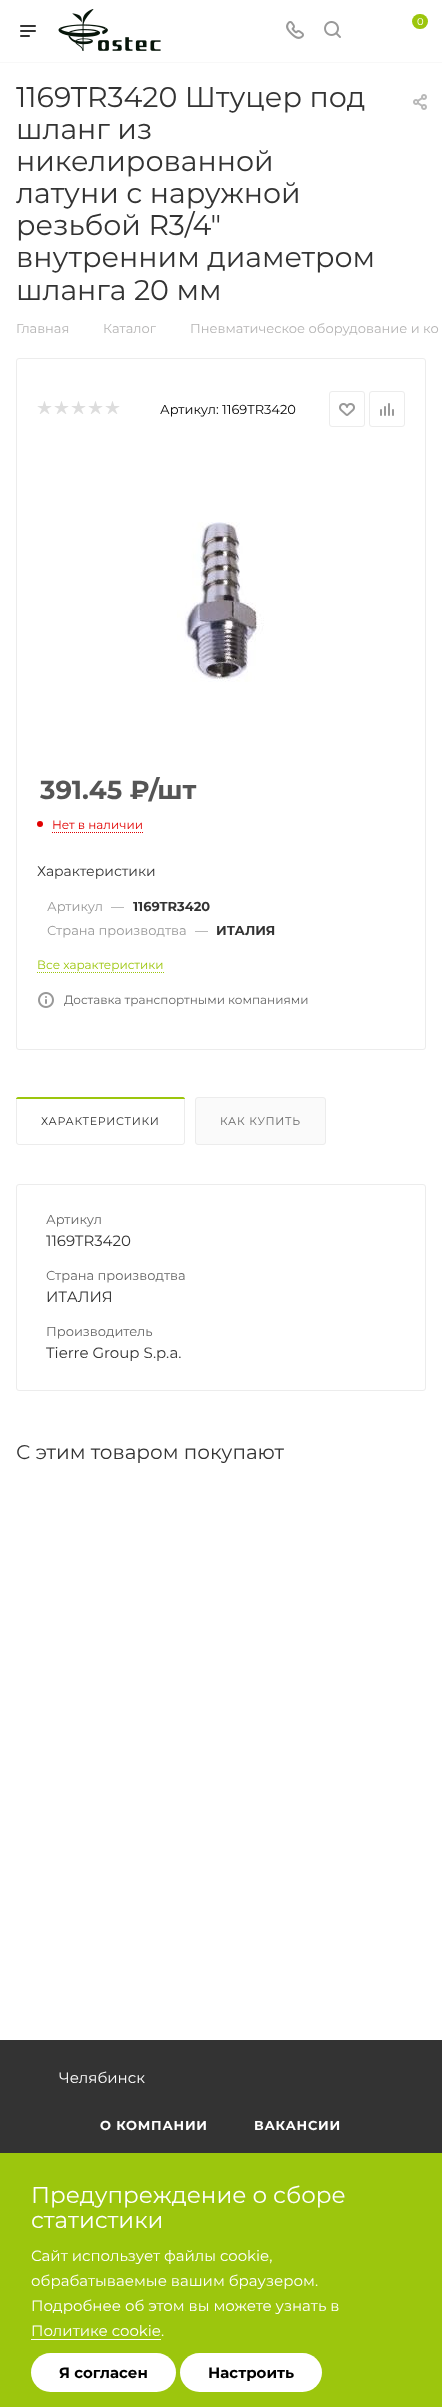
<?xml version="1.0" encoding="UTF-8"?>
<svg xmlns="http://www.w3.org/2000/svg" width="442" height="2407">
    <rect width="100%" height="100%" fill="#FFFFFF"/>
    <rect x="0" y="62" width="442" height="1" fill="#F8F8F8"/>
    <image x="58" y="9" width="103" height="42" href="img_01.png"/>
    <image x="286" y="21" width="18" height="18" href="img_02.png"/>
    <image x="324" y="21" width="17" height="17" href="img_03.png"/>
    <rect x="412" y="14" width="16" height="15" rx="7.5" fill="#9CC60D"/>
    <text x="417" y="25" font-family="Montserrat" font-size="10" fill="#FFFFFF">0</text>
    <image x="20" y="25" width="16" height="12" href="img_04.png"/>
    <text font-family="Montserrat" font-size="28.5" fill="#333333">
        <tspan x="16" y="107">1169TR3420 Штуцер под</tspan>
        <tspan x="16" y="139">шланг из</tspan>
        <tspan x="16" y="171">никелированной</tspan>
        <tspan x="16" y="203">латуни с наружной</tspan>
        <tspan x="16" y="235">резьбой R3/4"</tspan>
        <tspan x="16" y="267">внутренним диаметром</tspan>
        <tspan x="16" y="300">шланга 20 мм</tspan>
    </text>
    <image x="413" y="94" width="14" height="16" href="img_05.png"/>
    <text x="16" y="333" font-family="Montserrat" font-size="13" fill="#B6B5B5">Главная</text>
    <text x="103" y="333" font-family="Montserrat" font-size="13" fill="#B6B5B5">Каталог</text>
    <text x="190" y="333" font-family="Montserrat" font-size="13" fill="#B6B5B5">Пневматическое оборудование и ко</text>
    <rect x="16.5" y="358.5" width="409" height="691" rx="2.5" fill="none" stroke="#ECECEC"/>
    <image x="37" y="401" width="15" height="13" href="img_06.png"/>
    <image x="54" y="401" width="15" height="13" href="img_06.png"/>
    <image x="71" y="401" width="15" height="13" href="img_06.png"/>
    <image x="88" y="401" width="15" height="13" href="img_06.png"/>
    <image x="105" y="401" width="15" height="13" href="img_06.png"/>
    <text x="160" y="414" font-family="Montserrat" font-size="13" fill="#000000">Артикул: 1169TR3420</text>
    <rect x="329.5" y="391.5" width="35" height="35" rx="2.5" fill="none" stroke="#ECECEC"/>
    <image x="339" y="403" width="16" height="13" href="img_07.png"/>
    <rect x="369.5" y="391.5" width="35" height="35" rx="2.5" fill="none" stroke="#ECECEC"/>
    <image x="380" y="403" width="14" height="13" href="img_08.png"/>
    <image x="177" y="522" width="87" height="160" href="img_09.png"/>
    <text x="40" y="799" font-family="Montserrat" font-size="26" font-weight="700" fill="#555555">391.45 ₽/шт</text>
    <circle cx="40" cy="824" r="3" fill="#E10000"/>
    <text x="52" y="829" font-family="Montserrat" font-size="12" fill="#E10000">Нет в наличии</text>
    <path d="M 52 832.5 H 143" fill="none" stroke="#E10000" stroke-dasharray="1 1"/>
    <text x="37" y="876" font-family="Montserrat" font-size="14" fill="#333333">Характеристики</text>
    <text x="47" y="911" font-family="Montserrat" font-size="13" fill="#999999">Артикул</text>
    <text x="111" y="911" font-family="Montserrat" font-size="13" fill="#999999">—</text>
    <text x="133" y="911" font-family="Montserrat" font-size="13" font-weight="700" fill="#333333">1169TR3420</text>
    <text x="47" y="935" font-family="Montserrat" font-size="13" fill="#999999">Страна производтва</text>
    <text x="195" y="935" font-family="Montserrat" font-size="13" fill="#999999">—</text>
    <text x="216" y="935" font-family="Montserrat" font-size="13" font-weight="700" fill="#333333">ИТАЛИЯ</text>
    <text x="37" y="969" font-family="Montserrat" font-size="12" fill="#9CC60D">Все характеристики</text>
    <path d="M 37 972.5 H 164" fill="none" stroke="#9CC60D" stroke-dasharray="1 1"/>
    <image x="38" y="992" width="16" height="16" href="img_10.png"/>
    <text x="64" y="1004" font-family="Montserrat" font-size="12" fill="#666666">Доставка транспортными компаниями</text>
    <rect x="16.5" y="1097.5" width="168" height="47" rx="2.5" fill="#FAFAFA" stroke="#ECECEC"/>
    <rect x="17" y="1098" width="167" height="46" rx="3" fill="#FFFFFF"/>
    <path d="M 18 1097 H 183 C 184 1097 185 1098 185 1099 H 16 C 16 1098 17 1097 18 1097 Z" fill="#9CC60D"/>
    <text x="41" y="1125" font-family="Montserrat" font-size="11" letter-spacing="0.75" fill="#333333">ХАРАКТЕРИСТИКИ</text>
    <rect x="195.5" y="1097.5" width="130" height="47" rx="2.5" fill="#FAFAFA" stroke="#ECECEC"/>
    <text x="220" y="1125" font-family="Montserrat" font-size="11" letter-spacing="0.75" fill="#666666">КАК КУПИТЬ</text>
    <rect x="16.5" y="1184.5" width="409" height="206" rx="2.5" fill="none" stroke="#ECECEC"/>
    <text x="46" y="1224" font-family="Montserrat" font-size="13" fill="#666666">Артикул</text>
    <text x="46" y="1246" font-family="Montserrat" font-size="15" fill="#333333">1169TR3420</text>
    <text x="46" y="1280" font-family="Montserrat" font-size="13" fill="#666666">Страна производтва</text>
    <text x="46" y="1302" font-family="Montserrat" font-size="15" fill="#333333">ИТАЛИЯ</text>
    <text x="46" y="1336" font-family="Montserrat" font-size="13" fill="#666666">Производитель</text>
    <text x="46" y="1358" font-family="Montserrat" font-size="15" fill="#333333">Tierre Group S.p.a.</text>
    <text x="16" y="1459" font-family="Montserrat" font-size="20" fill="#333333">С этим товаром покупают</text>
    <rect x="0" y="2040" width="442" height="113" fill="#333333"/>
    <text x="59" y="2083" font-family="Montserrat" font-size="15" fill="#FFFFFF">Челябинск</text>
    <text x="100" y="2130" font-family="Montserrat" font-size="13" font-weight="700" letter-spacing="0.75" fill="#FFFFFF">О КОМПАНИИ</text>
    <text x="254" y="2130" font-family="Montserrat" font-size="13" font-weight="700" letter-spacing="0.75" fill="#FFFFFF">ВАКАНСИИ</text>
    <rect x="0" y="2153" width="442" height="254" fill="#9CC60D"/>
    <text font-family="Montserrat" font-size="23" fill="#FFFFFF">
        <tspan x="31" y="2203">Предупреждение о сборе</tspan>
        <tspan x="31" y="2228">статистики</tspan>
    </text>
    <text font-family="Montserrat" font-size="15" fill="#FFFFFF">
        <tspan x="31" y="2261">Сайт использует файлы cookie,</tspan>
        <tspan x="31" y="2286">обрабатываемые вашим браузером.</tspan>
        <tspan x="31" y="2311">Подробнее об этом вы можете узнать в</tspan>
        <tspan x="31" y="2336">Политике cookie.</tspan>
    </text>
    <rect x="31" y="2339" width="130" height="1" fill="#FFFFFF"/>
    <rect x="31" y="2353" width="145" height="39" rx="19.5" fill="#FFFFFF"/>
    <text x="59" y="2378" font-family="Montserrat" font-size="15" font-weight="700" fill="#000000">Я согласен</text>
    <rect x="180" y="2353" width="142" height="39" rx="19.5" fill="#FFFFFF"/>
    <text x="208" y="2378" font-family="Montserrat" font-size="15" font-weight="700" fill="#000000">Настроить</text>
</svg>
